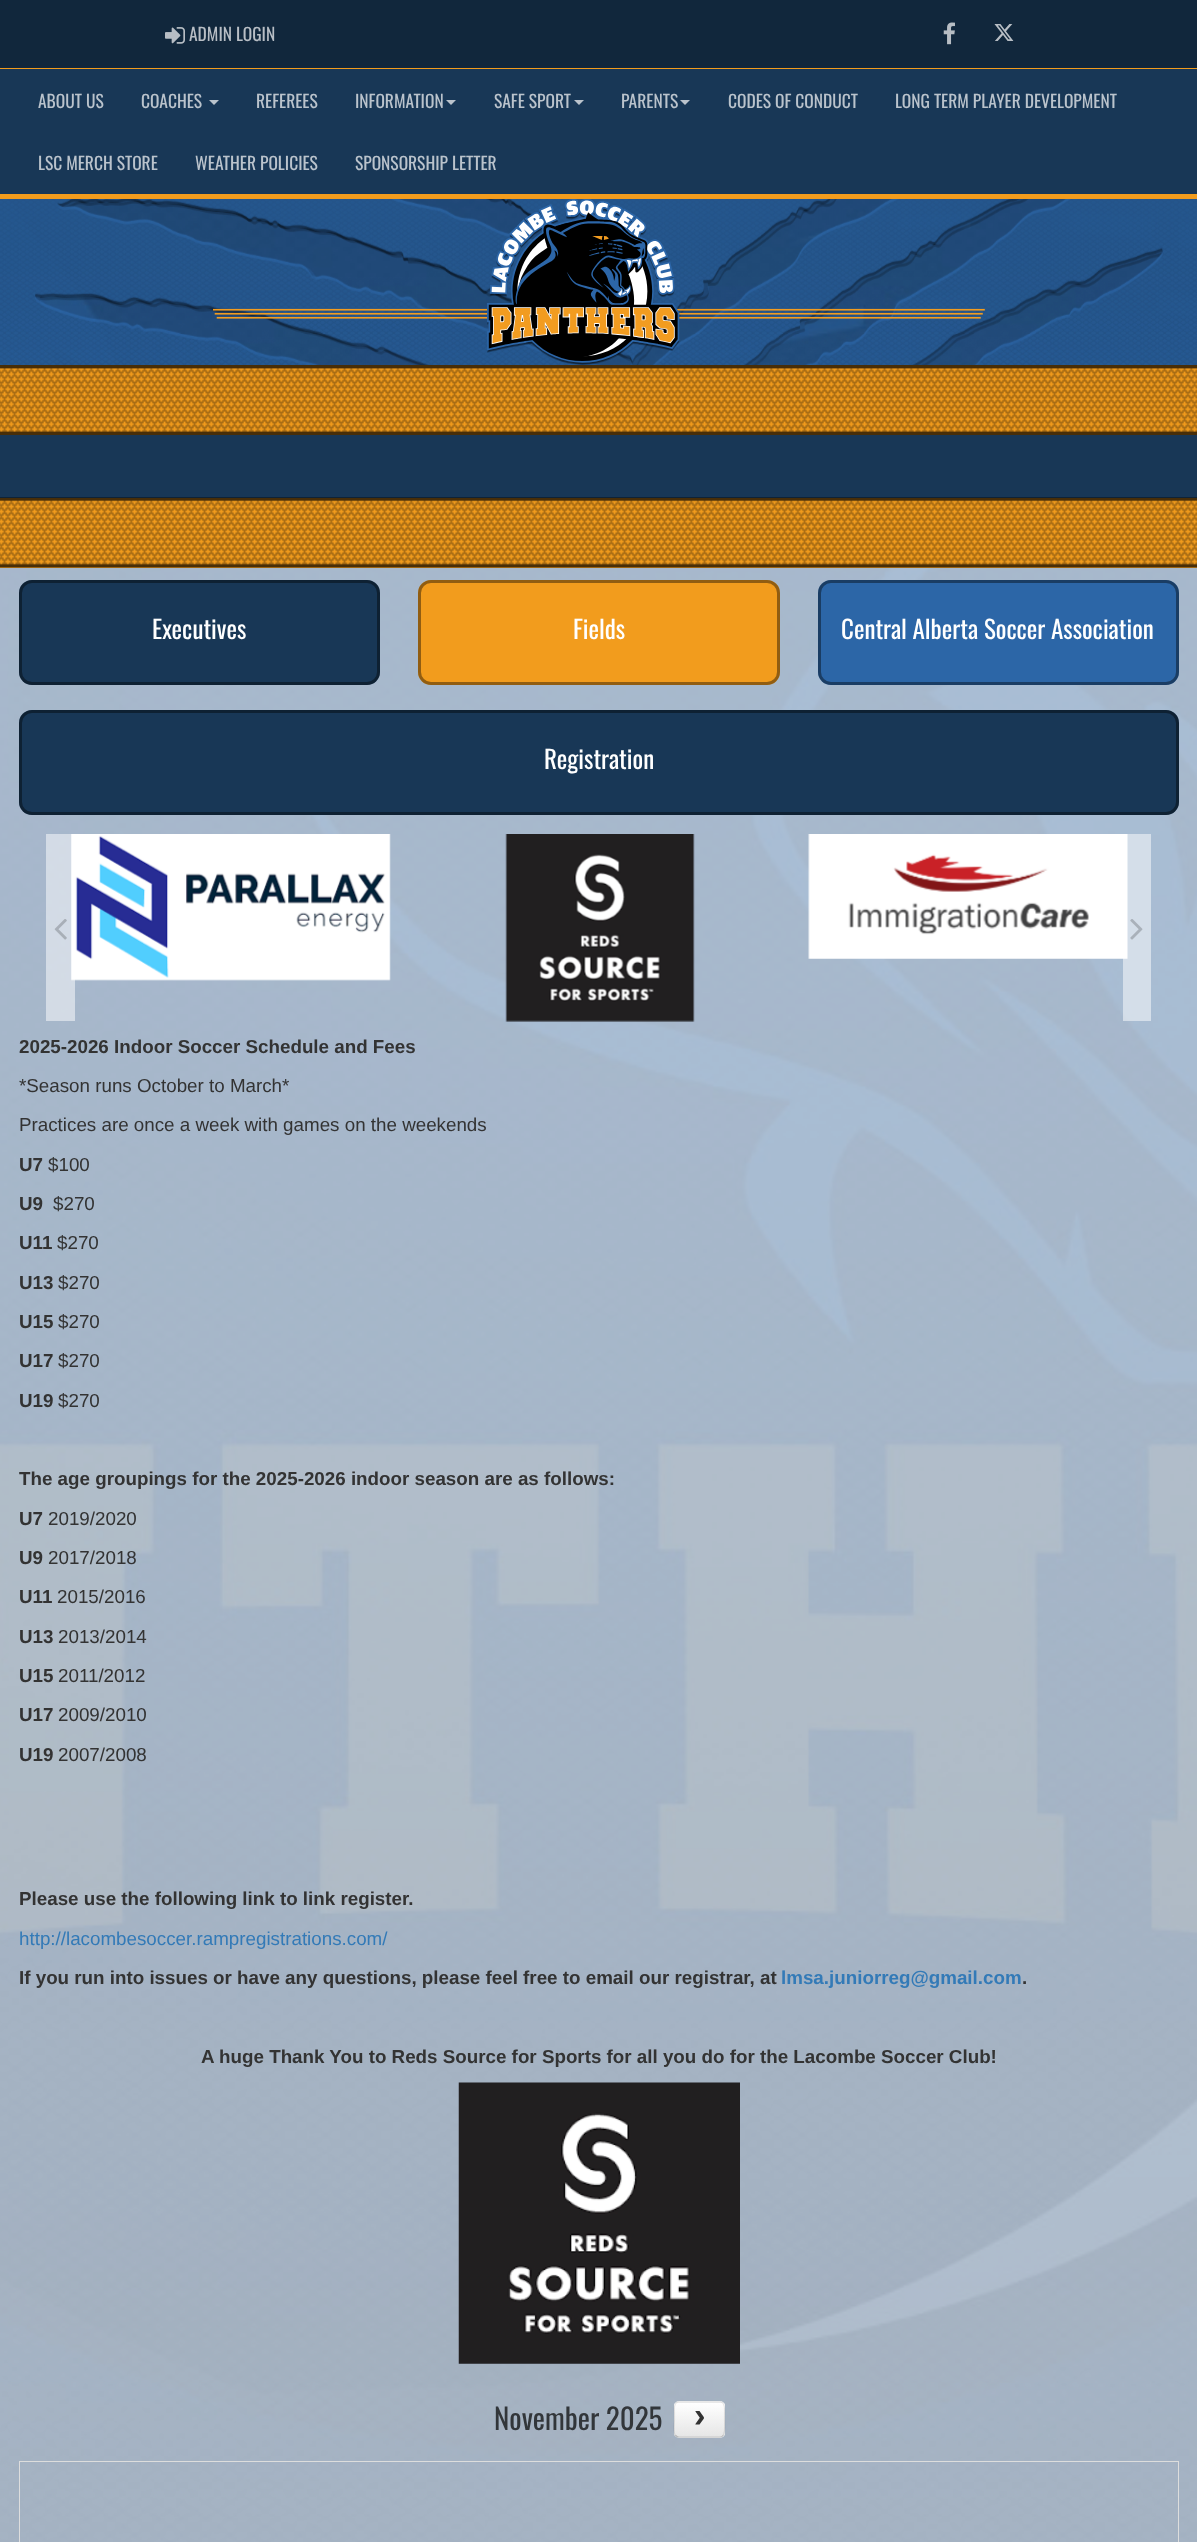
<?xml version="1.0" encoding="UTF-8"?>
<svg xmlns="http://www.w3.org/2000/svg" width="1197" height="2542">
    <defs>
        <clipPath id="clip1"><rect x="674" y="2401" width="51" height="37" rx="5"/></clipPath>
        <linearGradient id="g1" gradientUnits="userSpaceOnUse" x1="699" y1="2403" x2="699" y2="2436"><stop offset="0" stop-color="#FFFFFF"/><stop offset="1" stop-color="#E6E6E6"/></linearGradient>
        <clipPath id="clip2"><rect x="689" y="2411" width="21" height="18"/></clipPath>
    </defs>
    <rect width="100%" height="100%" fill="#FFFFFF"/>
    <rect x="0" y="68" width="1197" height="1" fill="#F29C1D"/>
    <rect x="0" y="0" width="1197" height="68" fill="#11273C"/>
    <image x="165" y="27" width="20" height="17" href="img_01.png"/>
    <text x="189" y="41" font-family="Oswald" font-size="17.5" fill="#B8BEC5">ADMIN LOGIN</text>
    <image x="943" y="22" width="12" height="23" href="img_02.png"/>
    <image x="994" y="24" width="20" height="17" href="img_03.png"/>
    <rect x="0" y="69" width="1197" height="125" fill="#183756"/>
    <rect x="0" y="194" width="1197" height="5" fill="#F29C1D"/>
    <text x="38" y="108" font-family="Oswald" font-size="17.5" fill="#BAC3CC">ABOUT US</text>
    <text x="141" y="108" font-family="Oswald" font-size="17.5" fill="#BAC3CC">COACHES</text>
    <path d="M 209 100 H 219 L 214 105 Z" fill="#BAC3CC"/>
    <text x="256" y="108" font-family="Oswald" font-size="17.5" fill="#BAC3CC">REFEREES</text>
    <text x="355" y="108" font-family="Oswald" font-size="17.5" fill="#BAC3CC">INFORMATION</text>
    <path d="M 446 100 H 456 L 451 105 Z" fill="#BAC3CC"/>
    <text x="494" y="108" font-family="Oswald" font-size="17.5" fill="#BAC3CC">SAFE SPORT</text>
    <path d="M 574 100 H 584 L 579 105 Z" fill="#BAC3CC"/>
    <text x="621" y="108" font-family="Oswald" font-size="17.5" fill="#BAC3CC">PARENTS</text>
    <path d="M 680 100 H 690 L 685 105 Z" fill="#BAC3CC"/>
    <text x="728" y="108" font-family="Oswald" font-size="17.5" fill="#BAC3CC">CODES OF CONDUCT</text>
    <text x="895" y="108" font-family="Oswald" font-size="17.5" fill="#BAC3CC">LONG TERM PLAYER DEVELOPMENT</text>
    <text x="38" y="170" font-family="Oswald" font-size="17.5" fill="#BAC3CC">LSC MERCH STORE</text>
    <text x="195" y="170" font-family="Oswald" font-size="17.5" fill="#BAC3CC">WEATHER POLICIES</text>
    <text x="355" y="170" font-family="Oswald" font-size="17.5" fill="#BAC3CC">SPONSORSHIP LETTER</text>
    <image x="0" y="199" width="1197" height="2343" href="img_04.png"/>
    <image x="0" y="199" width="1197" height="166" href="img_05.png"/>
    <image x="213" y="199" width="772" height="166" href="img_06.png"/>
    <rect x="0" y="365" width="1197" height="70" fill="#F29C1D"/>
    <image x="0" y="365" width="1197" height="70" href="img_07.png"/>
    <rect x="0" y="435" width="1197" height="63" fill="#183756"/>
    <rect x="0" y="498" width="1197" height="70" fill="#F29C1D"/>
    <image x="0" y="497" width="1197" height="71" href="img_08.png"/>
    <rect x="0" y="568" width="1197" height="1974" fill="#FFFFFF" fill-opacity="0.6"/>
    <rect x="19" y="580" width="361" height="105" rx="13" fill="#183756"/>
    <rect x="20.5" y="581.5" width="358" height="102" rx="11.5" fill="none" stroke="#000000" stroke-opacity="0.4" stroke-width="3"/>
    <text x="152" y="639" font-family="Oswald" font-size="25" fill="#FFFFFF">Executives</text>
    <rect x="418" y="580" width="362" height="105" rx="13" fill="#F29C1D"/>
    <rect x="419.5" y="581.5" width="359" height="102" rx="11.5" fill="none" stroke="#000000" stroke-opacity="0.4" stroke-width="3"/>
    <text x="573" y="639" font-family="Oswald" font-size="25" fill="#FFFFFF">Fields</text>
    <rect x="818" y="580" width="361" height="105" rx="13" fill="#2C66A7"/>
    <rect x="819.5" y="581.5" width="358" height="102" rx="11.5" fill="none" stroke="#000000" stroke-opacity="0.4" stroke-width="3"/>
    <text x="841" y="639" font-family="Oswald" font-size="25" fill="#FFFFFF">Central Alberta Soccer Association</text>
    <rect x="19" y="710" width="1160" height="105" rx="13" fill="#183756"/>
    <rect x="20.5" y="711.5" width="1157" height="102" rx="11.5" fill="none" stroke="#000000" stroke-opacity="0.4" stroke-width="3"/>
    <text x="544" y="769" font-family="Oswald" font-size="25" fill="#FFFFFF">Registration</text>
    <image x="71" y="834" width="320" height="147" href="img_10.png"/>
    <rect x="46" y="834" width="29" height="187" fill="#FFFFFF" fill-opacity="0.5"/>
    <image x="54" y="919" width="13" height="21" href="img_09.png"/>
    <image x="505" y="834" width="190" height="188" href="img_11.png"/>
    <image x="808" y="834" width="320" height="125" href="img_12.png"/>
    <rect x="1123" y="834" width="28" height="187" fill="#FFFFFF" fill-opacity="0.5"/>
    <image x="1130" y="919" width="13" height="21" href="img_13.png"/>
    <text x="19" y="1053" font-family="Liberation Sans" font-size="18.8" font-weight="700" fill="#333333">2025-2026 Indoor Soccer Schedule and Fees</text>
    <text x="19" y="1092" font-family="Liberation Sans" font-size="18.8" fill="#333333">*Season runs October to March*</text>
    <text x="19" y="1131" font-family="Liberation Sans" font-size="18.8" fill="#333333">Practices are once a week with games on the weekends</text>
    <text x="19" y="1171" font-family="Liberation Sans" font-size="18.8" font-weight="700" fill="#333333">U7</text>
    <text x="48" y="1171" font-family="Liberation Sans" font-size="18.8" fill="#333333">$100</text>
    <text x="19" y="1210" font-family="Liberation Sans" font-size="18.8" font-weight="700" fill="#333333">U9</text>
    <text x="53" y="1210" font-family="Liberation Sans" font-size="18.8" fill="#333333">$270</text>
    <text x="19" y="1249" font-family="Liberation Sans" font-size="18.8" font-weight="700" fill="#333333">U11</text>
    <text x="57" y="1249" font-family="Liberation Sans" font-size="18.8" fill="#333333">$270</text>
    <text x="19" y="1289" font-family="Liberation Sans" font-size="18.8" font-weight="700" fill="#333333">U13</text>
    <text x="58" y="1289" font-family="Liberation Sans" font-size="18.8" fill="#333333">$270</text>
    <text x="19" y="1328" font-family="Liberation Sans" font-size="18.8" font-weight="700" fill="#333333">U15</text>
    <text x="58" y="1328" font-family="Liberation Sans" font-size="18.8" fill="#333333">$270</text>
    <text x="19" y="1367" font-family="Liberation Sans" font-size="18.8" font-weight="700" fill="#333333">U17</text>
    <text x="58" y="1367" font-family="Liberation Sans" font-size="18.8" fill="#333333">$270</text>
    <text x="19" y="1407" font-family="Liberation Sans" font-size="18.8" font-weight="700" fill="#333333">U19</text>
    <text x="58" y="1407" font-family="Liberation Sans" font-size="18.8" fill="#333333">$270</text>
    <text x="19" y="1485" font-family="Liberation Sans" font-size="18.8" font-weight="700" fill="#333333">The age groupings for the 2025-2026 indoor season are as follows:</text>
    <text x="19" y="1525" font-family="Liberation Sans" font-size="18.8" font-weight="700" fill="#333333">U7</text>
    <text x="48" y="1525" font-family="Liberation Sans" font-size="18.8" fill="#333333">2019/2020</text>
    <text x="19" y="1564" font-family="Liberation Sans" font-size="18.8" font-weight="700" fill="#333333">U9</text>
    <text x="48" y="1564" font-family="Liberation Sans" font-size="18.8" fill="#333333">2017/2018</text>
    <text x="19" y="1603" font-family="Liberation Sans" font-size="18.8" font-weight="700" fill="#333333">U11</text>
    <text x="57" y="1603" font-family="Liberation Sans" font-size="18.8" fill="#333333">2015/2016</text>
    <text x="19" y="1643" font-family="Liberation Sans" font-size="18.8" font-weight="700" fill="#333333">U13</text>
    <text x="58" y="1643" font-family="Liberation Sans" font-size="18.8" fill="#333333">2013/2014</text>
    <text x="19" y="1682" font-family="Liberation Sans" font-size="18.8" font-weight="700" fill="#333333">U15</text>
    <text x="58" y="1682" font-family="Liberation Sans" font-size="18.8" fill="#333333">2011/2012</text>
    <text x="19" y="1721" font-family="Liberation Sans" font-size="18.8" font-weight="700" fill="#333333">U17</text>
    <text x="58" y="1721" font-family="Liberation Sans" font-size="18.8" fill="#333333">2009/2010</text>
    <text x="19" y="1761" font-family="Liberation Sans" font-size="18.8" font-weight="700" fill="#333333">U19</text>
    <text x="58" y="1761" font-family="Liberation Sans" font-size="18.8" fill="#333333">2007/2008</text>
    <text x="19" y="1905" font-family="Liberation Sans" font-size="18.8" font-weight="700" fill="#333333">Please use the following link to link register.</text>
    <text x="19" y="1945" font-family="Liberation Sans" font-size="18.8" fill="#337AB7">http://lacombesoccer.rampregistrations.com/</text>
    <text x="19" y="1984" font-family="Liberation Sans" font-size="18.8" font-weight="700" fill="#333333">If you run into issues or have any questions, please feel free to email our registrar, at</text>
    <text x="781" y="1984" font-family="Liberation Sans" font-size="18.8" font-weight="700" fill="#337AB7">lmsa.juniorreg@gmail.com</text>
    <text x="1022" y="1984" font-family="Liberation Sans" font-size="18.8" font-weight="700" fill="#333333">.</text>
    <text x="201" y="2063" font-family="Liberation Sans" font-size="18.8" font-weight="700" fill="#333333">A huge Thank You to Reds Source for Sports for all you do for the Lacombe Soccer Club!</text>
    <image x="458" y="2082" width="282" height="282" href="img_14.png"/>
    <text x="494" y="2430" font-family="Oswald" font-size="29" fill="#32363A">November 2025</text>
    <rect x="674" y="2401" width="51" height="37" rx="5" fill="#F5F5F5"/>
    <g clip-path="url(#clip1)">
        <rect x="674" y="2403" width="51" height="33" fill="url(#g1)"/>
    </g>
    <path d="M 723 2435.5 C 722.5 2436.5 721 2437 720 2437 H 679 C 677.5 2437 676.5 2436.5 675.5 2435.5" fill="none" stroke="#000000" stroke-opacity="0.25" stroke-width="1.2"/>
    <path d="M 675.5 2435.5 C 673 2433 674.5 2422.5 674.5 2419.5 V 2410.5 C 674.5 2407.5 673.5 2403 678 2402 H 721 C 725 2403 724.5 2407.5 724.5 2410.5 V 2419.5 C 724.5 2422.5 725.5 2433 723 2435.5" fill="none" stroke="#000000" stroke-opacity="0.1" stroke-width="1.2"/>
    <g clip-path="url(#clip2)">
        <text x="689" y="2427" font-family="Liberation Mono" font-size="35" font-weight="700" fill="#333333">›</text>
    </g>
    <rect x="19.5" y="2461.5" width="1159" height="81" fill="none" stroke="#DDDDDD"/>
</svg>
